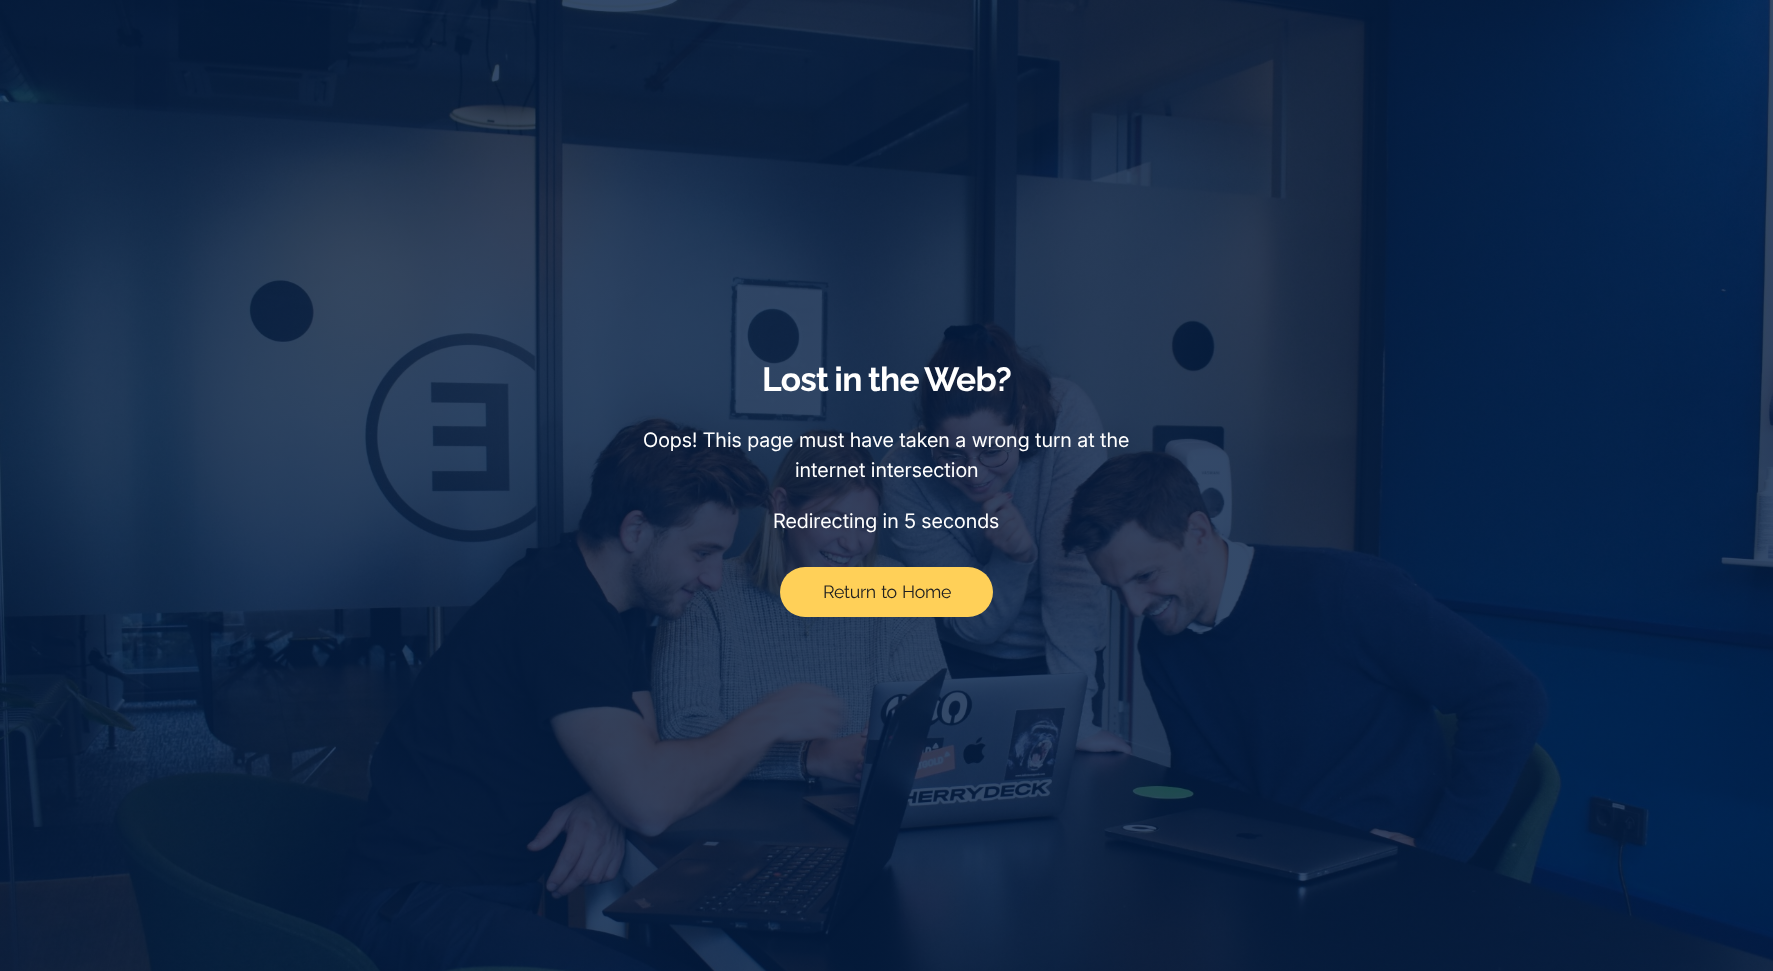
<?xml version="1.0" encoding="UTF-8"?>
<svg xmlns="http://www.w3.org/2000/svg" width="1773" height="971">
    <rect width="100%" height="100%" fill="#FFFFFF"/>
    <image x="0" y="0" width="1773" height="971" href="img_01.png"/>
    <text x="762" y="391" word-spacing="-1" font-family="Raleway" font-size="33.5" font-weight="700" letter-spacing="-0.75" fill="#FFFFFF">Lost in the Web?</text>
    <text x="643" y="447" font-family="Inter" font-size="20" fill="#FFFFFF">Oops! This page must have taken a wrong turn at the</text>
    <text x="795" y="477" font-family="Inter" font-size="20" fill="#FFFFFF">internet intersection</text>
    <text x="773" y="528" font-family="Inter" font-size="20" fill="#FFFFFF">Redirecting in 5 seconds</text>
    <rect x="780" y="567" width="213" height="50" rx="25" fill="#FFD058"/>
    <text x="823" y="598" word-spacing="1" font-family="Raleway" font-size="17.75" letter-spacing="-0.3" fill="#212121">Return to Home</text>
</svg>
